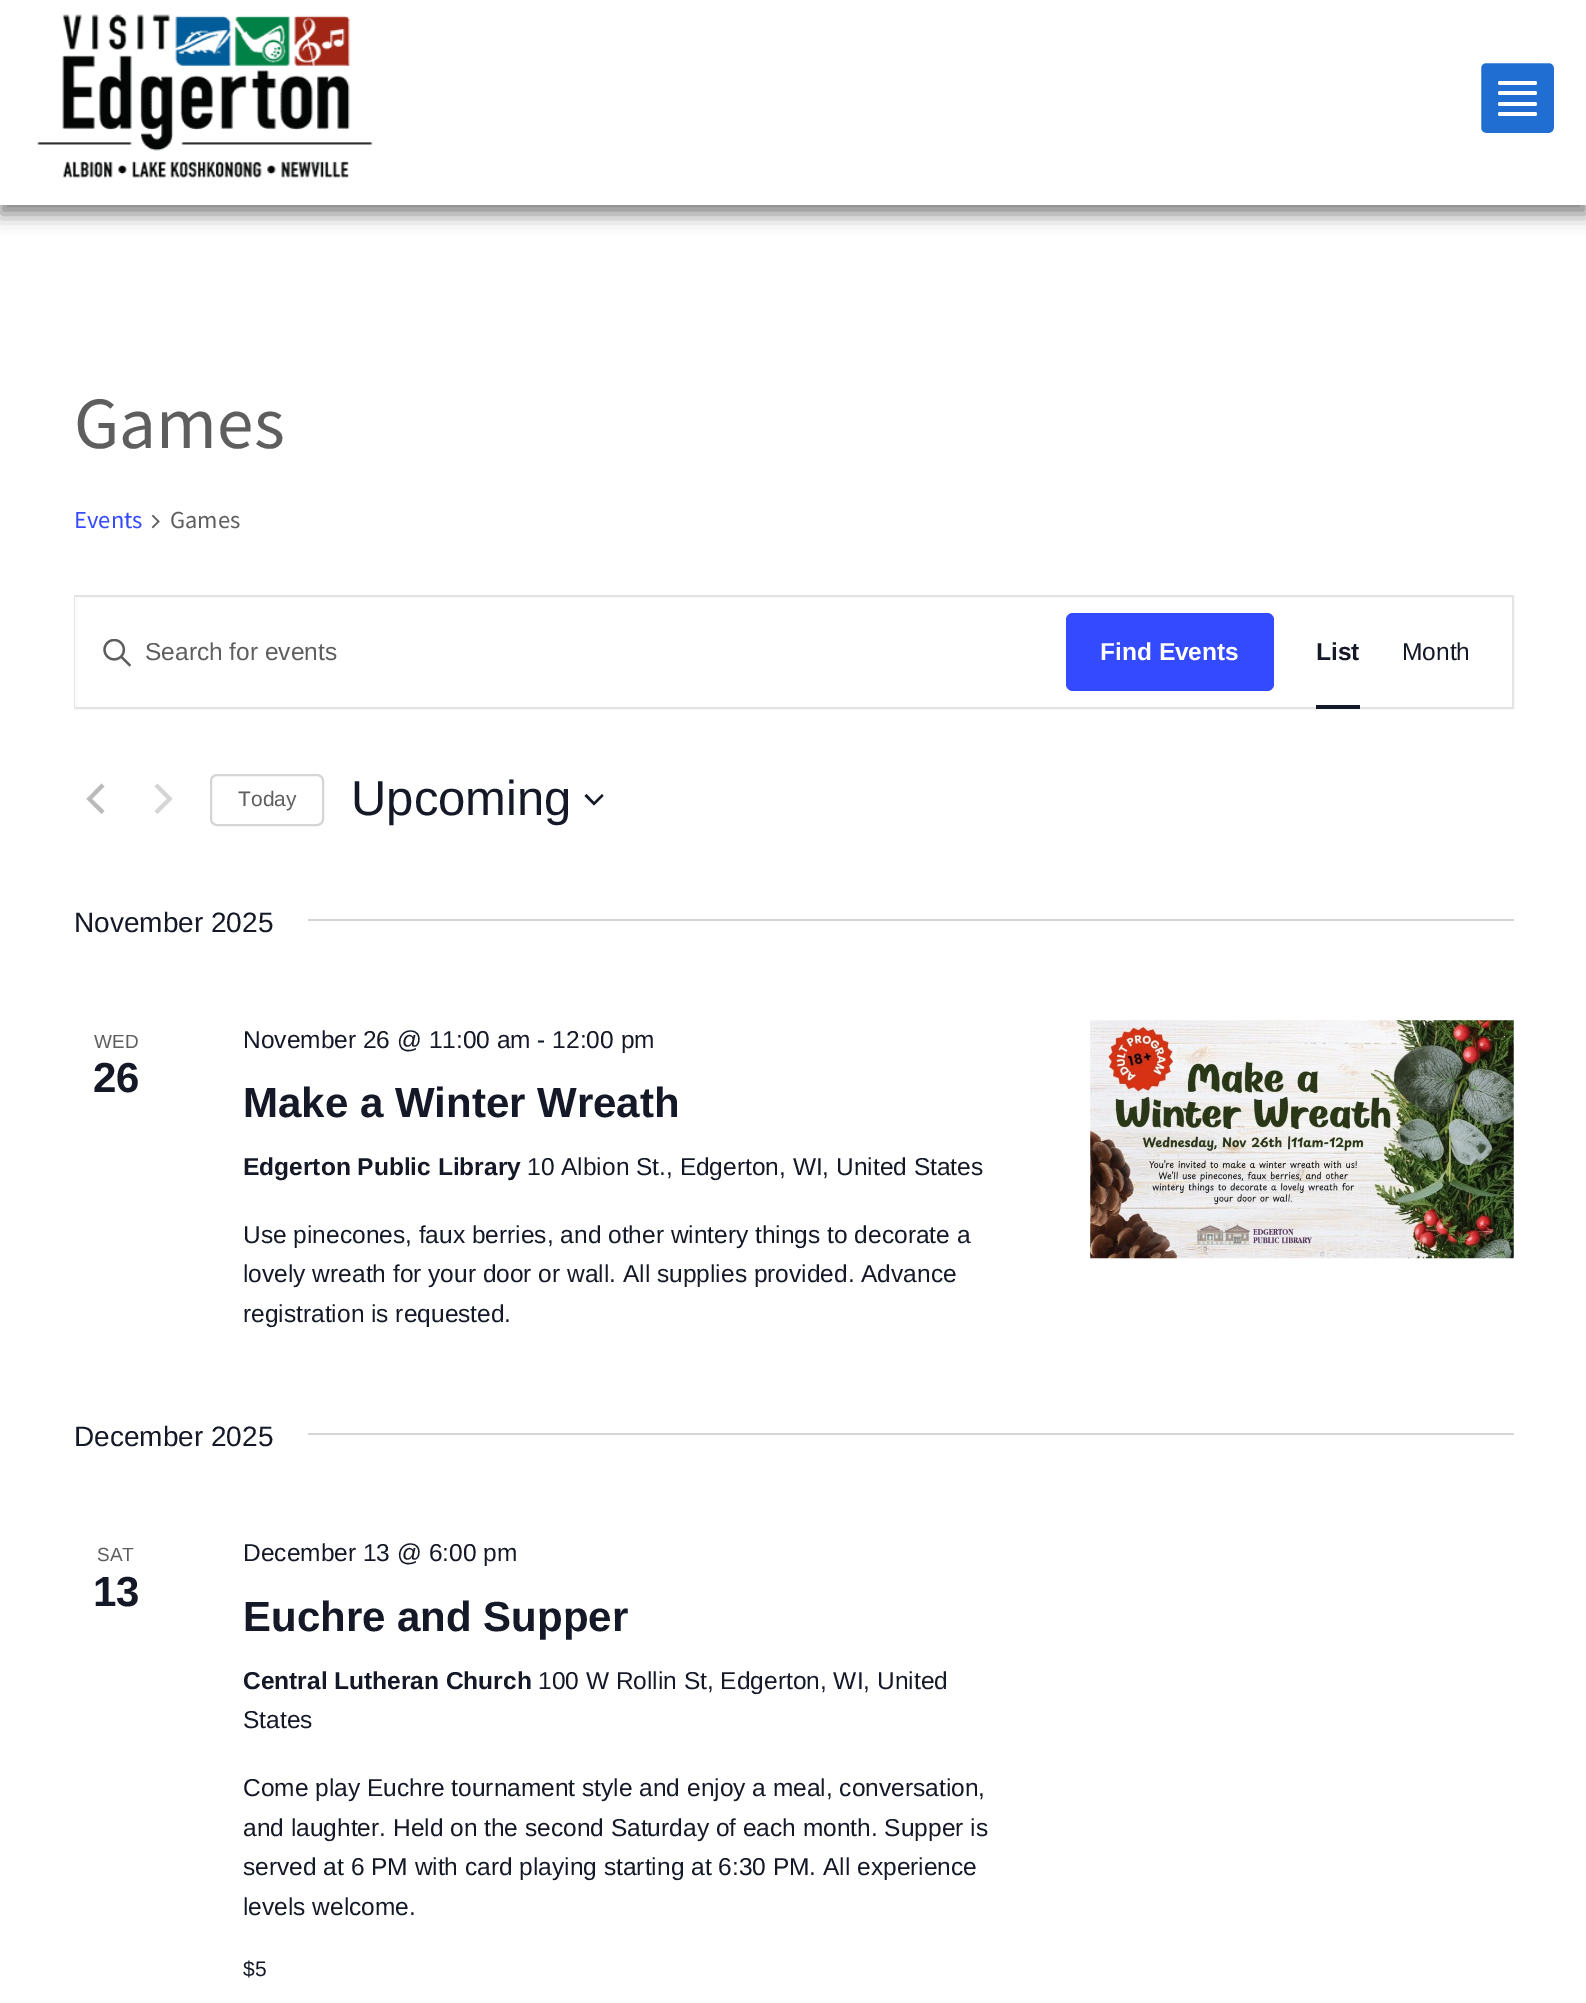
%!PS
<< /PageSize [1586 2003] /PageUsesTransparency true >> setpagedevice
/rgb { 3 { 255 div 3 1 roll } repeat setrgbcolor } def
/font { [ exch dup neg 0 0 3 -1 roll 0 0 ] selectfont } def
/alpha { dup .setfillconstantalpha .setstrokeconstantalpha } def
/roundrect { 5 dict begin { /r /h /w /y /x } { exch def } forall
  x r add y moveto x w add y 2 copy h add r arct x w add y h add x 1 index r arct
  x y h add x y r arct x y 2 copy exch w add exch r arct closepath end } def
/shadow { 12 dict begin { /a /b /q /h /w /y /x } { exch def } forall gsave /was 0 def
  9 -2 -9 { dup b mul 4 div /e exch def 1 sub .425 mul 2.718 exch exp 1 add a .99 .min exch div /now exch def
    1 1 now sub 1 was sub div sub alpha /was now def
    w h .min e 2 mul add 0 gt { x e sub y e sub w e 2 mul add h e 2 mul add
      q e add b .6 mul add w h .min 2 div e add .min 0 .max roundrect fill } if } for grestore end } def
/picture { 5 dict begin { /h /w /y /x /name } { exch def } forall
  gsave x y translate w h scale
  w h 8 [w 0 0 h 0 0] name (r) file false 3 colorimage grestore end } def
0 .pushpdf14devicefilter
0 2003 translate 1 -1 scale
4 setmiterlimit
255 255 255 rgb
0 0 1586 2003 rectfill
0 0 0 rgb
0 9 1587 205 0 9 0.5 shadow
255 255 255 rgb
0 0 1586 205 rectfill
(img/1.rgb) 37 14 336 164 picture
32 110 209 rgb
1480 62 75 72 6 roundrect gsave fill grestore
255 255 255 rgb
2 setlinewidth
stroke
1498 81 39 4 2 roundrect fill
1498 91 39 4 2 roundrect fill
1498 102 39 4 2 roundrect fill
1498 112 39 4 2 roundrect fill
(img/2.rgb) 151 515 9 14 picture
228 228 228 rgb
75 596 1438 112 rectstroke
255 255 255 rgb
75 597 1 110 rectfill
(img/3.rgb) 103 639 28 28 picture
51 74 255 rgb
1066 613 208 78 7 roundrect fill
20 24 39 rgb
1316 705 44 4 rectfill
186 186 186 rgb
104.5 811 moveto 101.5 814 lineto 86.5 799 lineto 101.5 783.5 lineto 104.5 786.5 lineto 92 799 lineto closepath fill
213 213 213 rgb
154.5 786.5 moveto 157.5 783.5 lineto 172.5 799 lineto 157.5 814 lineto 154.5 811 lineto 167 799 lineto closepath fill
211 775 112 50 6 roundrect stroke
20 24 39 rgb
586.5 794 moveto 594 802 lineto 602 794 lineto 603.5 796 lineto 594 805.5 lineto 584.5 796 lineto closepath eofill
213 213 213 rgb
308 919 1206 2 rectfill
(img/4.rgb) 1090 1020 424 239 picture
308 1433 1206 2 rectfill
/SourceSansPro-Regular 73.5 font
95 94 94 rgb
74 448 moveto (Games) show
/SourceSansPro-Regular 24.5 font
51 74 255 rgb
74 528 moveto (Events) show
95 94 94 rgb
170 528 moveto (Games) show
/LiberationSans-Regular 24.5 font
145 660 moveto (Search for events) show
/LiberationSans-Bold 24.5 font
255 255 255 rgb
1100 660 moveto (Find Events) show
20 24 39 rgb
1316 660 moveto (List) show
/LiberationSans-Regular 24.5 font
1402 660 moveto (Month) show
/LiberationSans-Regular 21 font
95 94 94 rgb
238 806 moveto (Today) show
/LiberationSans-Regular 49 font
20 24 39 rgb
351 815 moveto (Upcoming) show
/LiberationSans-Regular 28 font
74 932 moveto (November 2025) show
/LiberationSans-Regular 19 font
95 94 94 rgb
94 1048 moveto (WED) show
/LiberationSans-Bold 42 font
20 24 39 rgb
93 1092 moveto (26) show
/LiberationSans-Regular 24.5 font
243 1048 moveto (November 26 @ 11:00 am - 12:00 pm) show
/LiberationSans-Bold 42 font
243 1117 moveto (Make a Winter Wreath) show
/LiberationSans-Bold 24.5 font
243 1175 moveto (Edgerton Public Library) show
/LiberationSans-Regular 24.5 font
[
  [(10 Albion St., Edgerton, WI, United States) 527 1175]
  [(Use pinecones, faux berries, and other wintery things to decorate a) 243 1243]
  [(lovely wreath for your door or wall. All supplies provided. Advance) 243 1282]
  [(registration is requested.) 243 1322]
] { aload pop moveto show } forall
/LiberationSans-Regular 28 font
74 1446 moveto (December 2025) show
/LiberationSans-Regular 19 font
95 94 94 rgb
97 1561 moveto (SAT) show
/LiberationSans-Bold 42 font
20 24 39 rgb
93 1606 moveto (13) show
/LiberationSans-Regular 24.5 font
243 1561 moveto (December 13 @ 6:00 pm) show
/LiberationSans-Bold 42 font
243 1631 moveto (Euchre and Supper) show
/LiberationSans-Bold 24.5 font
243 1689 moveto (Central Lutheran Church) show
/LiberationSans-Regular 24.5 font
[
  [(100 W Rollin St, Edgerton, WI, United) 538 1689]
  [(States) 243 1728]
  [(Come play Euchre tournament style and enjoy a meal, conversation,) 243 1796]
  [(and laughter. Held on the second Saturday of each month. Supper is) 243 1836]
  [(served at 6 PM with card playing starting at 6:30 PM. All experience) 243 1875]
  [(levels welcome.) 243 1915]
] { aload pop moveto show } forall
/LiberationSans-Regular 21 font
243 1976 moveto ($5) show
.poppdf14devicefilter showpage
